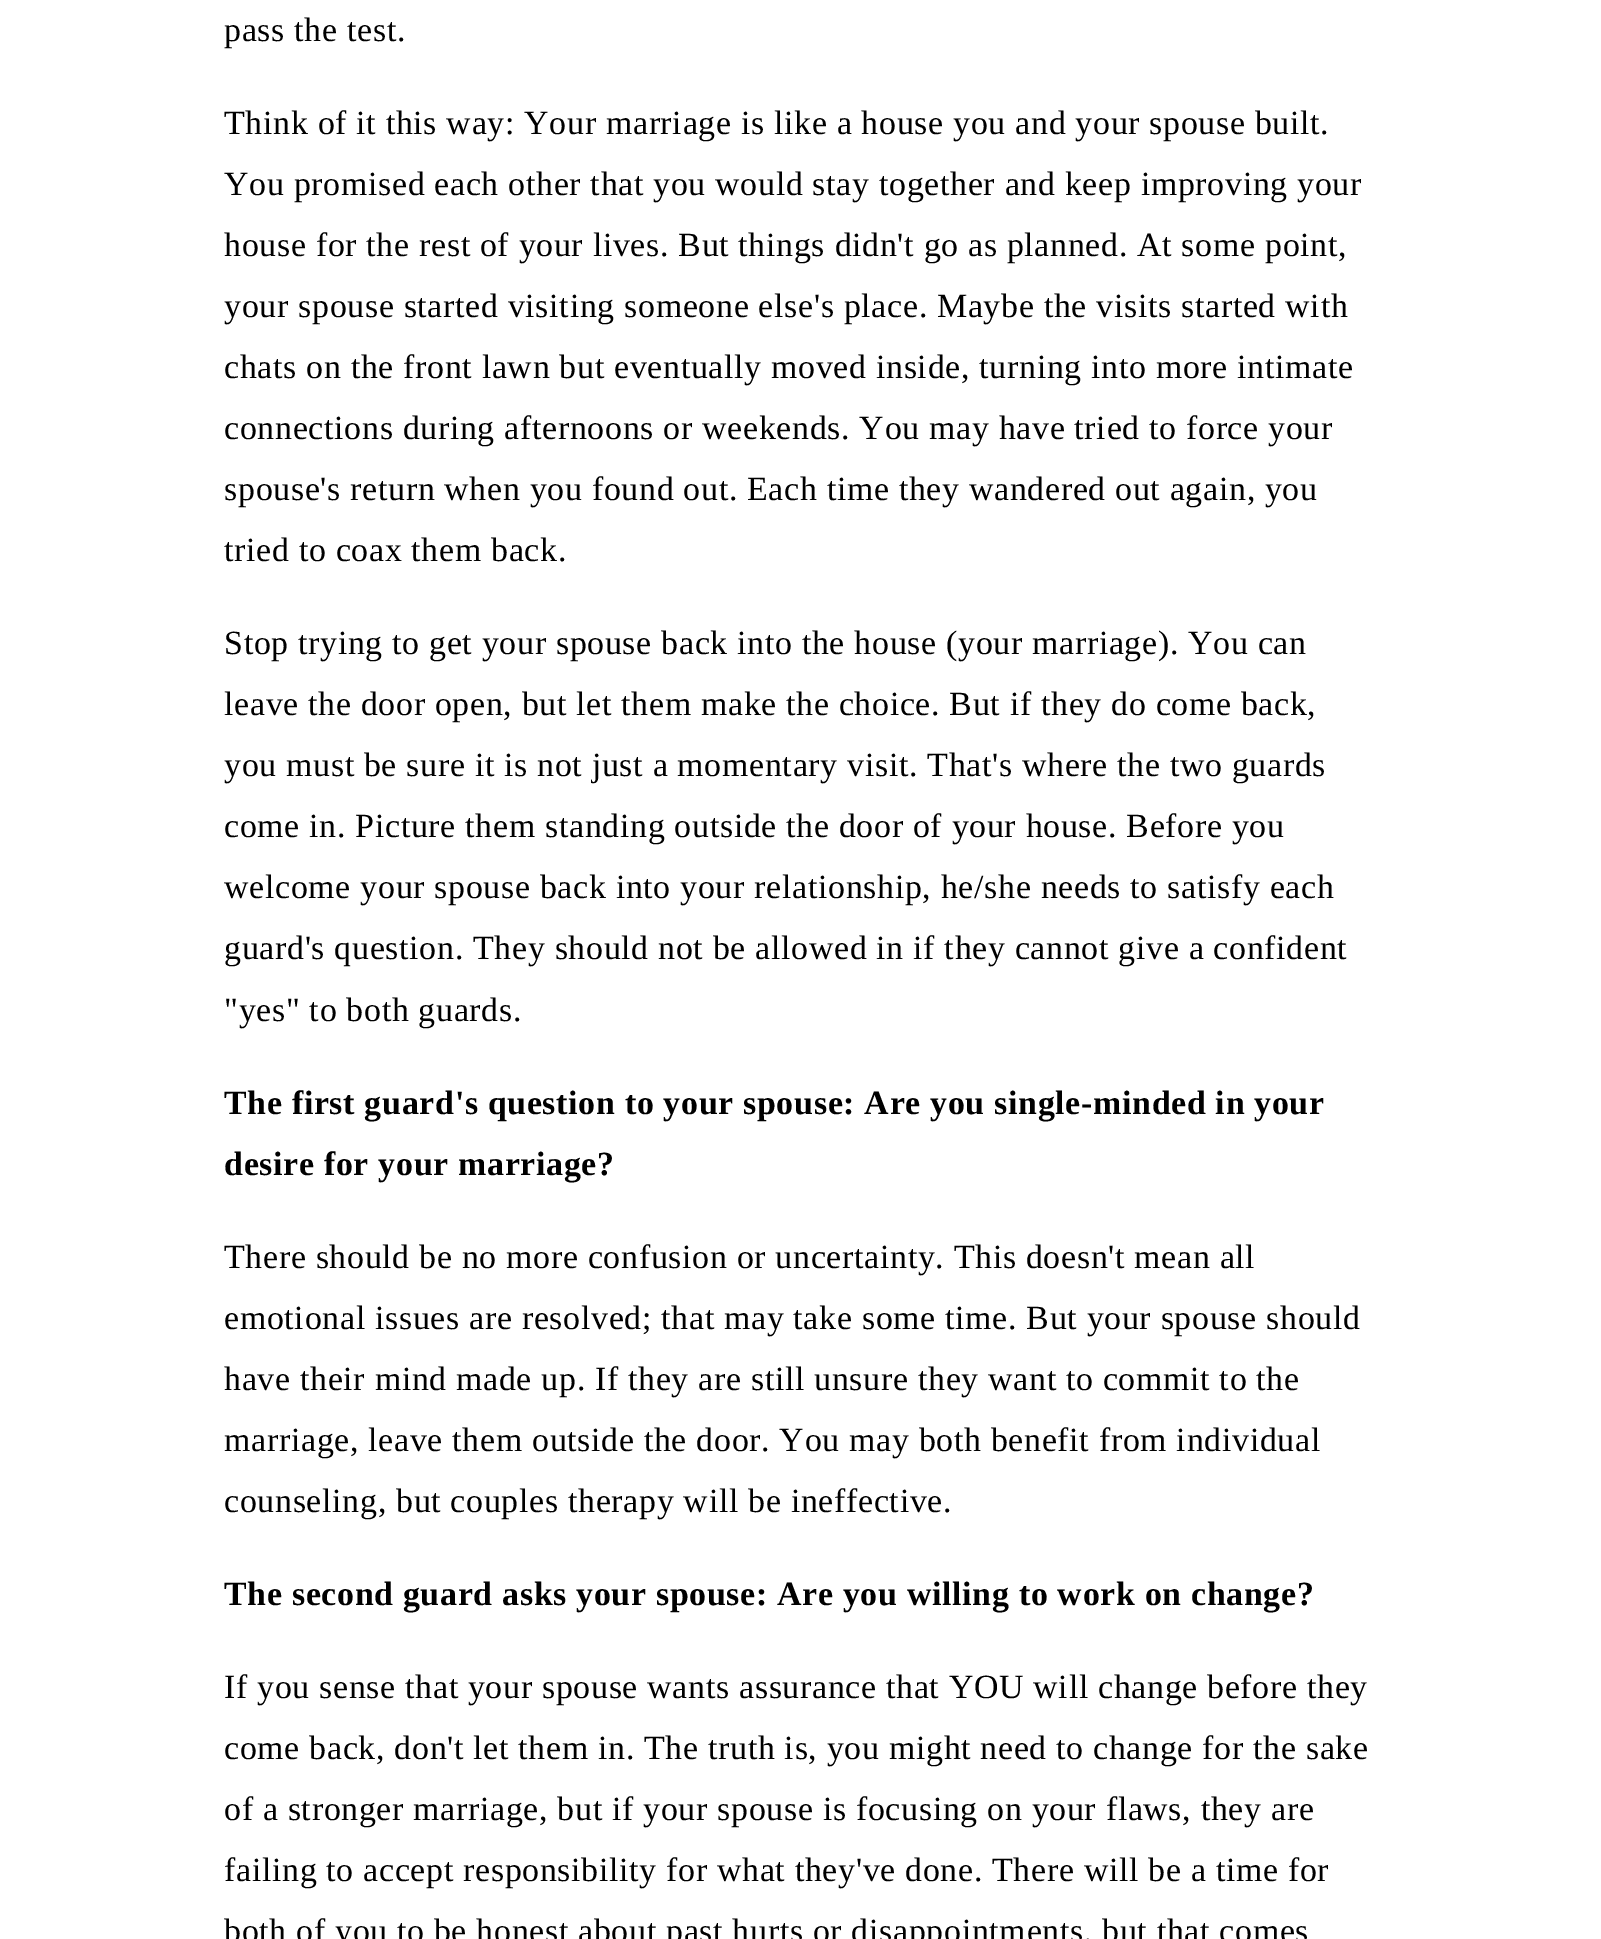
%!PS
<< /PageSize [1601 1939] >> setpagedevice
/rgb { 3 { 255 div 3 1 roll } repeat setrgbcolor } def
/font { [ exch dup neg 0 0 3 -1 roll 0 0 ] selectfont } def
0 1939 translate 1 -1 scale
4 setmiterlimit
255 255 255 rgb
0 0 1601 1939 rectfill
/LiberationSerif-Regular 33.9 font
0 0 0 rgb
224 41 moveto 0.68 0 (pass the test.) ashow
224 134 moveto 0.68 0 (Think of it this way: Your marriage is like a house you and your spouse built.) ashow
224 195 moveto 0.68 0 (You promised each other that you would stay together and keep improving your) ashow
224 256 moveto 0.68 0 (house for the rest of your lives. But things didn't go as planned. At some point,) ashow
224 317 moveto 0.68 0 (your spouse started visiting someone else's place. Maybe the visits started with) ashow
224 378 moveto 0.68 0 (chats on the front lawn but eventually moved inside, turning into more intimate) ashow
224 439 moveto 0.68 0 (connections during afternoons or weekends. You may have tried to force your) ashow
224 500 moveto 0.68 0 (spouse's return when you found out. Each time they wandered out again, you) ashow
224 561 moveto 0.68 0 (tried to coax them back.) ashow
224 654 moveto 0.68 0 (Stop trying to get your spouse back into the house \(your marriage\). You can) ashow
224 715 moveto 0.68 0 (leave the door open, but let them make the choice. But if they do come back,) ashow
224 776 moveto 0.68 0 (you must be sure it is not just a momentary visit. That's where the two guards) ashow
224 837 moveto 0.68 0 (come in. Picture them standing outside the door of your house. Before you) ashow
224 898 moveto 0.68 0 (welcome your spouse back into your relationship, he/she needs to satisfy each) ashow
224 959 moveto 0.68 0 (guard's question. They should not be allowed in if they cannot give a confident) ashow
224 1021 moveto 0.68 0 ("yes" to both guards.) ashow
/LiberationSerif-Bold 33.9 font
224 1114 moveto 0.68 0 (The first guard's question to your spouse: Are you single-minded in your) ashow
224 1175 moveto 0.68 0 (desire for your marriage?) ashow
/LiberationSerif-Regular 33.9 font
224 1268 moveto 0.68 0 (There should be no more confusion or uncertainty. This doesn't mean all) ashow
224 1329 moveto 0.68 0 (emotional issues are resolved; that may take some time. But your spouse should) ashow
224 1390 moveto 0.68 0 (have their mind made up. If they are still unsure they want to commit to the) ashow
224 1451 moveto 0.68 0 (marriage, leave them outside the door. You may both benefit from individual) ashow
224 1512 moveto 0.68 0 (counseling, but couples therapy will be ineffective.) ashow
/LiberationSerif-Bold 33.9 font
224 1605 moveto 0.68 0 (The second guard asks your spouse: Are you willing to work on change?) ashow
/LiberationSerif-Regular 33.9 font
224 1698 moveto 0.68 0 (If you sense that your spouse wants assurance that YOU will change before they) ashow
224 1759 moveto 0.68 0 (come back, don't let them in. The truth is, you might need to change for the sake) ashow
224 1820 moveto 0.68 0 (of a stronger marriage, but if your spouse is focusing on your flaws, they are) ashow
224 1881 moveto 0.68 0 (failing to accept responsibility for what they've done. There will be a time for) ashow
224 1942 moveto 0.68 0 (both of you to be honest about past hurts or disappointments, but that comes) ashow
showpage
